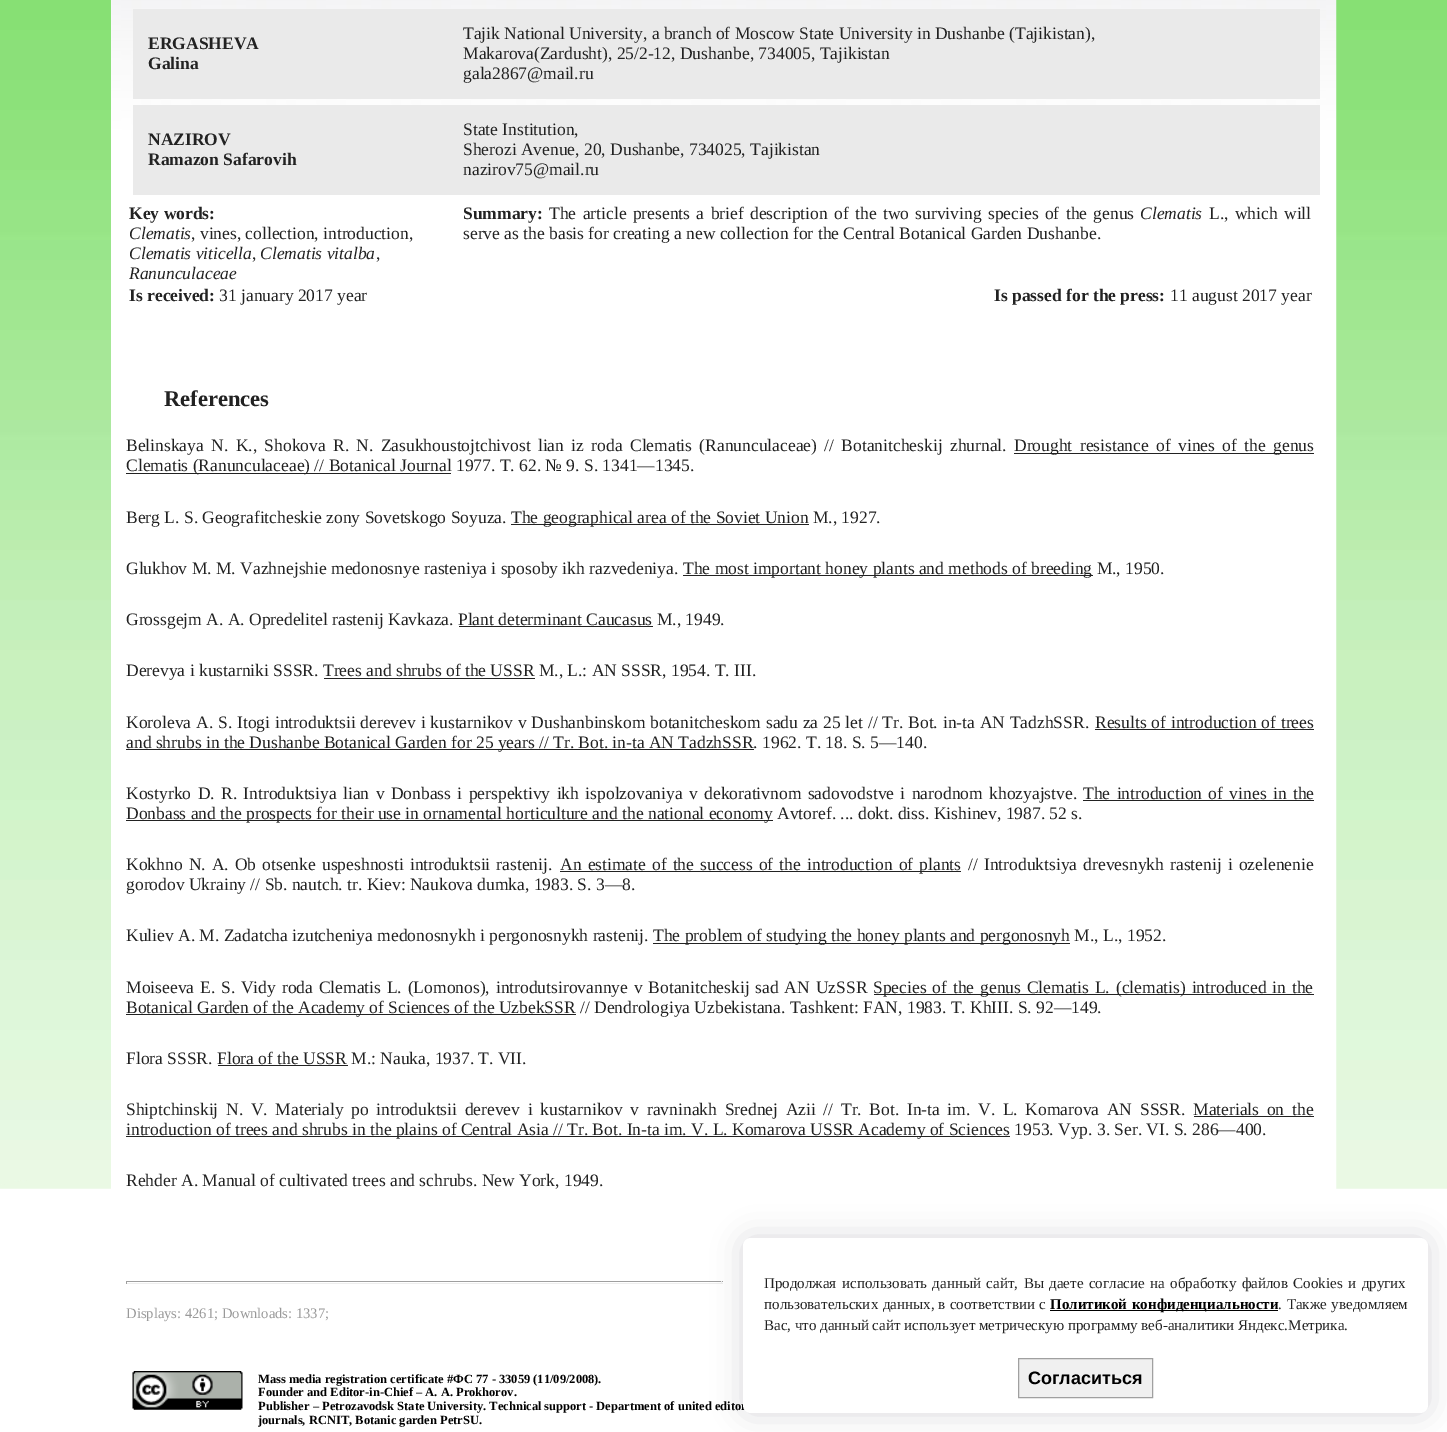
%!PS
<< /PageSize [1447 1432] /PageUsesTransparency true >> setpagedevice
/rgb { 3 { 255 div 3 1 roll } repeat setrgbcolor } def
/font { [ exch dup neg 0 0 3 -1 roll 0 0 ] selectfont } def
/alpha { dup .setfillconstantalpha .setstrokeconstantalpha } def
/roundrect { 5 dict begin { /r /h /w /y /x } { exch def } forall
  x r add y moveto x w add y 2 copy h add r arct x w add y h add x 1 index r arct
  x y h add x y r arct x y 2 copy exch w add exch r arct closepath end } def
/shadow { 12 dict begin { /a /b /q /h /w /y /x } { exch def } forall gsave /was 0 def
  9 -2 -9 { dup b mul 4 div /e exch def 1 sub .425 mul 2.718 exch exp 1 add a .99 .min exch div /now exch def
    1 1 now sub 1 was sub div sub alpha /was now def
    w h .min e 2 mul add 0 gt { x e sub y e sub w e 2 mul add h e 2 mul add
      q e add b .6 mul add w h .min 2 div e add .min 0 .max roundrect fill } if } for grestore end } def
/picture { 5 dict begin { /h /w /y /x /name } { exch def } forall
  gsave x y translate w h scale
  w h 8 [w 0 0 h 0 0] name (r) file false 3 colorimage grestore end } def
0 .pushpdf14devicefilter
0 1432 translate 1 -1 scale
4 setmiterlimit
255 255 255 rgb
0 0 1447 1432 rectfill
(img/1.rgb) 0 0 1447 1189 picture
111 0 1225 1189 rectfill
(img/2.rgb) 111 0 1226 1189 picture
[
  [133 9 1187 90 234 234 234]
  [133 105 1187 90 234 234 234]
  [1014 453 300 1 34 34 34]
  [126 473 325 1 34 34 34]
  [511 524 298 1 34 34 34]
  [683 575 410 1 34 34 34]
  [459 626 194 1 34 34 34]
  [324 678 211 1 34 34 34]
  [1095 729 219 1 34 34 34]
  [126 749 628 1 34 34 34]
  [1083 800 231 1 34 34 34]
  [126 820 647 1 34 34 34]
  [560 871 401 1 34 34 34]
  [653 943 417 1 34 34 34]
  [874 994 440 1 34 34 34]
  [126 1014 450 1 34 34 34]
  [218 1065 130 1 34 34 34]
  [1194 1116 120 1 34 34 34]
  [126 1136 884 1 34 34 34]
  [126 1281 597 1 159 159 159]
  [721 1281 1 3 238 238 238]
  [126 1283 597 1 238 238 238]
  [126 1281 1 3 159 159 159]
] { aload pop rgb rectfill } forall
5 0 31 rgb
743 1238 685 175 8 15 0.15 shadow
(img/3.rgb) 132 1371 111 39 picture
/LiberationSerif-Bold 17.5 font
34 34 34 rgb
148 49 moveto (ERGASHEVA) show
148 69 moveto (Galina) show
/LiberationSerif-Regular 17.5 font
[
  [(Tajik National University, a branch of Moscow State University in Dushanbe \(Tajikistan\),) 463 39]
  [(Makarova\(Zardusht\), 25/2-12, Dushanbe, 734005, Tajikistan) 463 59]
  [(gala2867@mail.ru) 463 79]
] { aload pop moveto show } forall
/LiberationSerif-Bold 17.5 font
148 145 moveto (NAZIROV) show
148 165 moveto (Ramazon Safarovih) show
/LiberationSerif-Regular 17.5 font
[
  [(State Institution,) 463 135]
  [(Sherozi Avenue, 20, Dushanbe, 734025, Tajikistan) 463 155]
  [(nazirov75@mail.ru) 463 175]
] { aload pop moveto show } forall
/LiberationSerif-Bold 17.5 font
129 219 moveto (Key words:) show
/LiberationSerif-Italic 17.5 font
129 239 moveto (Clematis) show
/LiberationSerif-Regular 17.5 font
191 239 moveto (, vines, collection, introduction,) show
/LiberationSerif-Italic 17.5 font
129 259 moveto (Clematis viticella) show
/LiberationSerif-Regular 17.5 font
252 259 moveto (,) show
/LiberationSerif-Italic 17.5 font
260 259 moveto (Clematis vitalba) show
/LiberationSerif-Regular 17.5 font
376 259 moveto (,) show
/LiberationSerif-Italic 17.5 font
129 279 moveto (Ranunculaceae) show
/LiberationSerif-Bold 17.5 font
463 219 moveto (Summary:) show
/LiberationSerif-Regular 17.5 font
549 219 moveto 2 0 32 (The article presents a brief description of the two surviving species of the genus) widthshow
/LiberationSerif-Italic 17.5 font
1140 219 moveto (Clematis) show
/LiberationSerif-Regular 17.5 font
1209 219 moveto 2 0 32 (L., which will) widthshow
463 239 moveto (serve as the basis for creating a new collection for the Central Botanical Garden Dushanbe.) show
/LiberationSerif-Bold 17.5 font
129 301 moveto (Is received:) show
/LiberationSerif-Regular 17.5 font
219 301 moveto (31 january 2017 year) show
/LiberationSerif-Bold 17.5 font
994 301 moveto (Is passed for the press:) show
/LiberationSerif-Regular 17.5 font
1170 301 moveto (11 august 2017 year) show
/LiberationSerif-Bold 22.5 font
164 406 moveto (References) show
/LiberationSerif-Regular 17.5 font
126 451 moveto 3 0 32 (Belinskaya N. K., Shokova R. N. Zasukhoustojtchivost lian iz roda Clematis \(Ranunculaceae\) // Botanitcheskij zhurnal.) widthshow
1014 451 moveto 3 0 32 (Drought resistance of vines of the genus) widthshow
[
  [(Clematis \(Ranunculaceae\) // Botanical Journal 1977. T. 62. № 9. S. 1341—1345.) 126 471]
  [(Berg L. S. Geografitcheskie zony Sovetskogo Soyuza.) 126 523]
  [(The geographical area of the Soviet Union M., 1927.) 511 523]
  [(Glukhov M. M. Vazhnejshie medonosnye rasteniya i sposoby ikh razvedeniya.) 126 574]
  [(The most important honey plants and methods of breeding M., 1950.) 683 574]
  [(Grossgejm A. A. Opredelitel rastenij Kavkaza. Plant determinant Caucasus M., 1949.) 126 625]
  [(Derevya i kustarniki SSSR. Trees and shrubs of the USSR M., L.: AN SSSR, 1954. T. III.) 126 676]
] { aload pop moveto show } forall
126 728 moveto 0.5 0 32 (Koroleva A. S. Itogi introduktsii derevev i kustarnikov v Dushanbinskom botanitcheskom sadu za 25 let // Tr. Bot. in-ta AN TadzhSSR.) widthshow
1095 728 moveto 0.5 0 32 (Results of introduction of trees) widthshow
126 748 moveto (and shrubs in the Dushanbe Botanical Garden for 25 years // Tr. Bot. in-ta AN TadzhSSR. 1962. T. 18. S. 5—140.) show
126 799 moveto 2 0 32 (Kostyrko D. R. Introduktsiya lian v Donbass i perspektivy ikh ispolzovaniya v dekorativnom sadovodstve i narodnom khozyajstve.) widthshow
1083 799 moveto 2 0 32 (The introduction of vines in the) widthshow
126 819 moveto (Donbass and the prospects for their use in ornamental horticulture and the national economy Avtoref. ... dokt. diss. Kishinev, 1987. 52 s.) show
126 870 moveto 1.75 0 32 (Kokhno N. A. Ob otsenke uspeshnosti introduktsii rastenij.) widthshow
560 870 moveto 1.75 0 32 (An estimate of the success of the introduction of plants) widthshow
968 870 moveto 1.75 0 32 (// Introduktsiya drevesnykh rastenij i ozelenenie) widthshow
[
  [(gorodov Ukrainy // Sb. nautch. tr. Kiev: Naukova dumka, 1983. S. 3—8.) 126 890]
  [(Kuliev A. M. Zadatcha izutcheniya medonosnykh i pergonosnykh rastenij.) 126 941]
  [(The problem of studying the honey plants and pergonosnyh M., L., 1952.) 653 941]
] { aload pop moveto show } forall
126 993 moveto 1.5 0 32 (Moiseeva E. S. Vidy roda Clematis L. \(Lomonos\), introdutsirovannye v Botanitcheskij sad AN UzSSR) widthshow
873 993 moveto 1.5 0 32 (Species of the genus Clematis L. \(clematis\) introduced in the) widthshow
126 1013 moveto (Botanical Garden of the Academy of Sciences of the UzbekSSR // Dendrologiya Uzbekistana. Tashkent: FAN, 1983. T. KhIII. S. 92—149.) show
126 1064 moveto (Flora SSSR. Flora of the USSR M.: Nauka, 1937. T. VII.) show
126 1115 moveto 3.3 0 32 (Shiptchinskij N. V. Materialy po introduktsii derevev i kustarnikov v ravninakh Srednej Azii // Tr. Bot. In-ta im. V. L. Komarova AN SSSR.) widthshow
1193 1115 moveto 3.3 0 32 (Materials on the) widthshow
126 1135 moveto (introduction of trees and shrubs in the plains of Central Asia // Tr. Bot. In-ta im. V. L. Komarova USSR Academy of Sciences 1953. Vyp. 3. Ser. VI. S. 286—400.) show
126 1186 moveto (Rehder A. Manual of cultivated trees and schrubs. New York, 1949.) show
/LiberationSerif-Regular 14.6 font
153 153 153 rgb
126 1318 moveto (Displays: 4261; Downloads: 1337;) show
/LiberationSerif-Bold 12.5 font
0 0 0 rgb
[
  [(Mass media registration certificate #ФС 77 - 33059 \(11/09/2008\).) 258 1383]
  [(Founder and Editor-in-Chief – A. A. Prokhorov.) 258 1396]
  [(Publisher – Petrozavodsk State University. Technical support - Department of united editor) 258 1410]
] { aload pop moveto show } forall
255 255 255 rgb
743 1238 685 175 8 roundrect fill
240 240 240 rgb
1018.5 1358.5 moveto 1152.5 1358.5 lineto 1152.5 1397.5 lineto 1018.5 1397.5 lineto closepath gsave fill grestore
160 160 160 rgb
stroke
/LiberationSans-Bold 18 font
0 0 0 rgb
1028 1384 moveto (Согласиться) show
/LiberationSerif-Regular 15 font
34 34 34 rgb
764 1330 moveto (Вас, что данный сайт использует метрическую программу веб-аналитики Яндекс.Метрика.) show
1278 1309 moveto 1 0 32 (. Также уведомляем) widthshow
0 0 0 rgb
1050 1310 228 1 rectfill
/LiberationSerif-Bold 15 font
1050 1309 moveto 1 0 32 (Политикой конфиденциальности) widthshow
/LiberationSerif-Regular 15 font
34 34 34 rgb
938 1309 moveto 1 0 32 (в соответствии с) widthshow
764 1309 moveto 1 0 32 (пользовательских данных,) widthshow
764 1288 moveto 1.75 0 32 (Продолжая использовать данный сайт, Вы даете согласие на обработку файлов Cookies и других) widthshow
/LiberationSerif-Bold 12.5 font
0 0 0 rgb
258 1424 moveto (journals, RCNIT, Botanic garden PetrSU.) show
.poppdf14devicefilter showpage
